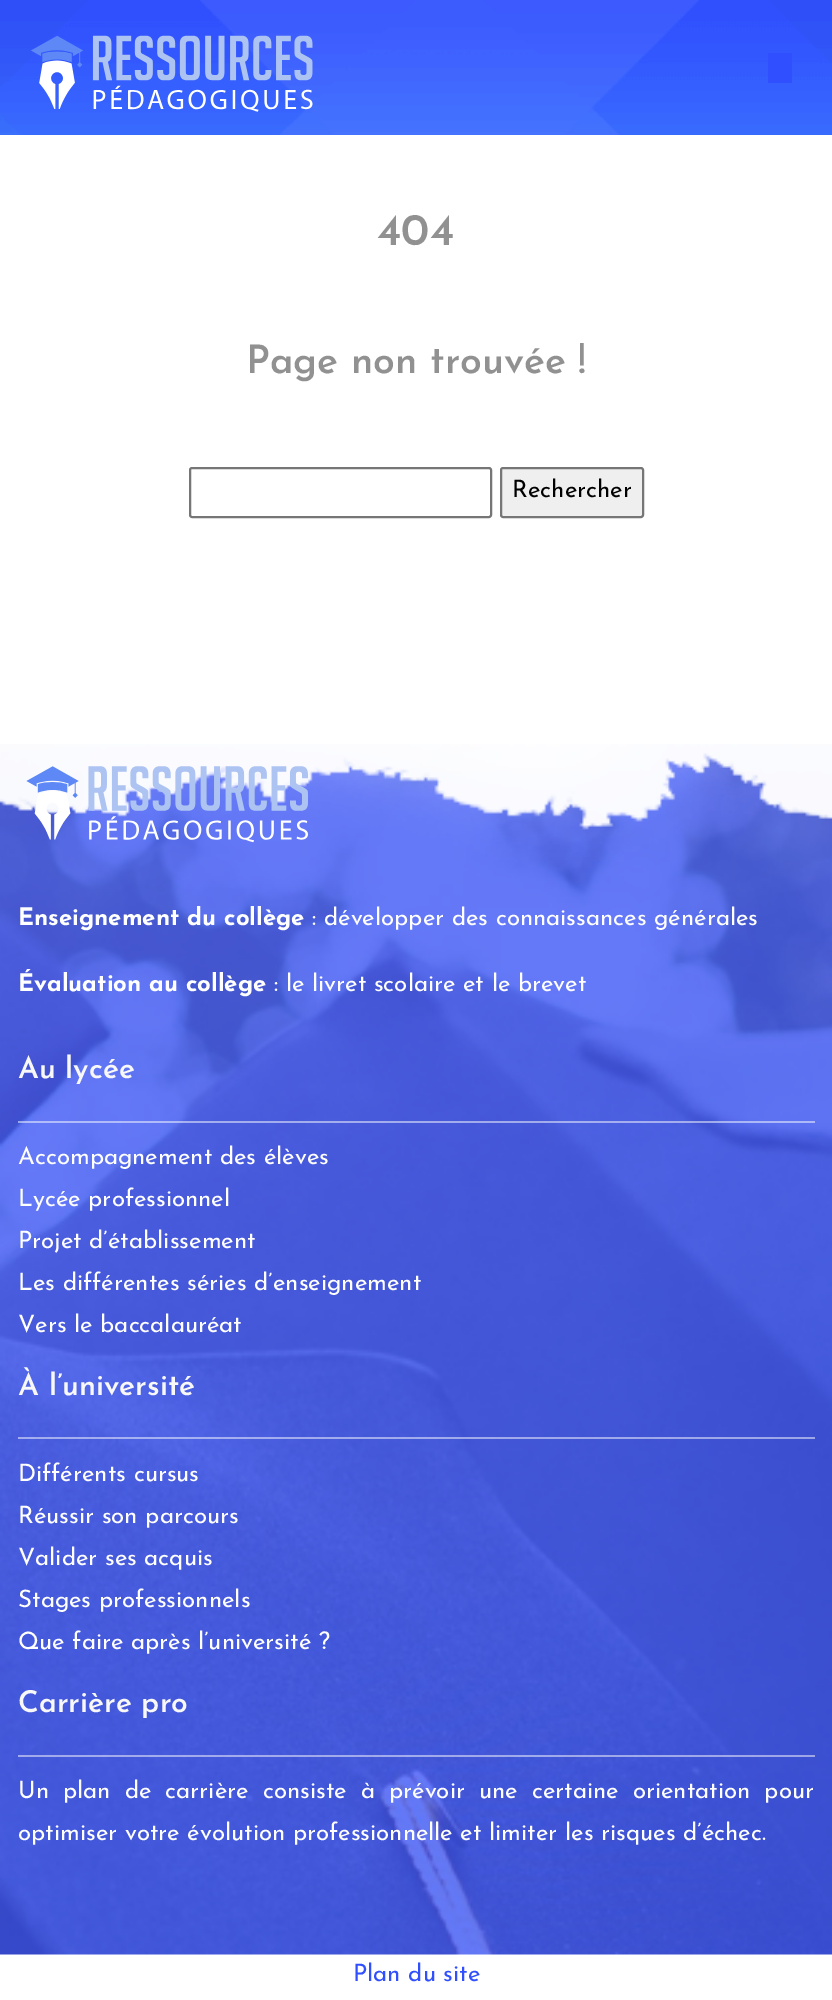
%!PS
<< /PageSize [832 2000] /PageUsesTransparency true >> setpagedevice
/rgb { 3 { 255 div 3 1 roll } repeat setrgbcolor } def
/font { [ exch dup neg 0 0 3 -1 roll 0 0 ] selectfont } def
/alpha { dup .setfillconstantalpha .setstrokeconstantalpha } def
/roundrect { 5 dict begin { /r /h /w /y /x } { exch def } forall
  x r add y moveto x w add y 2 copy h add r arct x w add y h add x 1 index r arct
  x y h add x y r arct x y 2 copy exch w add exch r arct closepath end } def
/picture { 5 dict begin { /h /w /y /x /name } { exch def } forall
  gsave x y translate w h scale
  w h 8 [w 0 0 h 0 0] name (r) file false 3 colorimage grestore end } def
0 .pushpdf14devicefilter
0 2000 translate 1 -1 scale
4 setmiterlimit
255 255 255 rgb
0 0 832 2000 rectfill
(img/1.rgb) 0 0 832 135 picture
(img/2.rgb) 31 35 282 77 picture
48 79 254 rgb
768 53 24 30 rectfill
118 118 118 rgb
2 setlinewidth
190 468 301 49 2 roundrect stroke
239 239 239 rgb
501 468 142 49 2 roundrect gsave fill grestore
118 118 118 rgb
stroke
(img/3.rgb) 0 744 832 1211 picture
(img/4.rgb) 26 766 282 77 picture
0.5 alpha
[
  [18 1121 797 2 255 255 255]
  [18 1437 797 2 255 255 255]
  [18 1755 797 2 255 255 255]
] { aload pop rgb rectfill } forall
/JosefinSans-SemiBold 45 font
1 alpha
145 145 145 rgb
377 245 moveto (404) show
/JosefinSans-SemiBold 39.25 font
246 373 moveto (Page non trouvée !) show
/JosefinSans-Regular 24 font
0 0 0 rgb
512 497 moveto (Rechercher) show
/JosefinSans-Bold 24 font
255 255 255 rgb
18 925 moveto (Enseignement du collège) show
/JosefinSans-Regular 24 font
312 925 moveto (: développer des connaissances générales) show
/JosefinSans-Bold 24 font
18 991 moveto (Évaluation au collège) show
/JosefinSans-Regular 24 font
274 991 moveto (: le livret scolaire et le brevet) show
/JosefinSans-SemiBold 30 font
248 248 248 rgb
18 1078 moveto (Au lycée) show
/JosefinSans-Regular 24 font
255 255 255 rgb
[
  [(Accompagnement des élèves) 18 1164]
  [(Lycée professionnel) 18 1206]
  [(Projet d’établissement) 18 1248]
  [(Les différentes séries d’enseignement) 18 1290]
  [(Vers le baccalauréat) 18 1332]
] { aload pop moveto show } forall
/JosefinSans-SemiBold 30 font
248 248 248 rgb
18 1395 moveto (À l’université) show
/JosefinSans-Regular 24 font
255 255 255 rgb
[
  [(Différents cursus) 18 1481]
  [(Réussir son parcours) 18 1523]
  [(Valider ses acquis) 18 1565]
  [(Stages professionnels) 18 1607]
  [(Que faire après l’université ?) 18 1649]
] { aload pop moveto show } forall
/JosefinSans-SemiBold 30 font
248 248 248 rgb
18 1712 moveto (Carrière pro) show
/JosefinSans-Regular 24 font
255 255 255 rgb
18 1798 moveto 6.5 0 32 (Un plan de carrière consiste à prévoir une certaine orientation pour) widthshow
18 1840 moveto (optimiser votre évolution professionnelle et limiter les risques d’échec.) show
48 79 254 rgb
353 1981 moveto (Plan du site) show
.poppdf14devicefilter showpage
